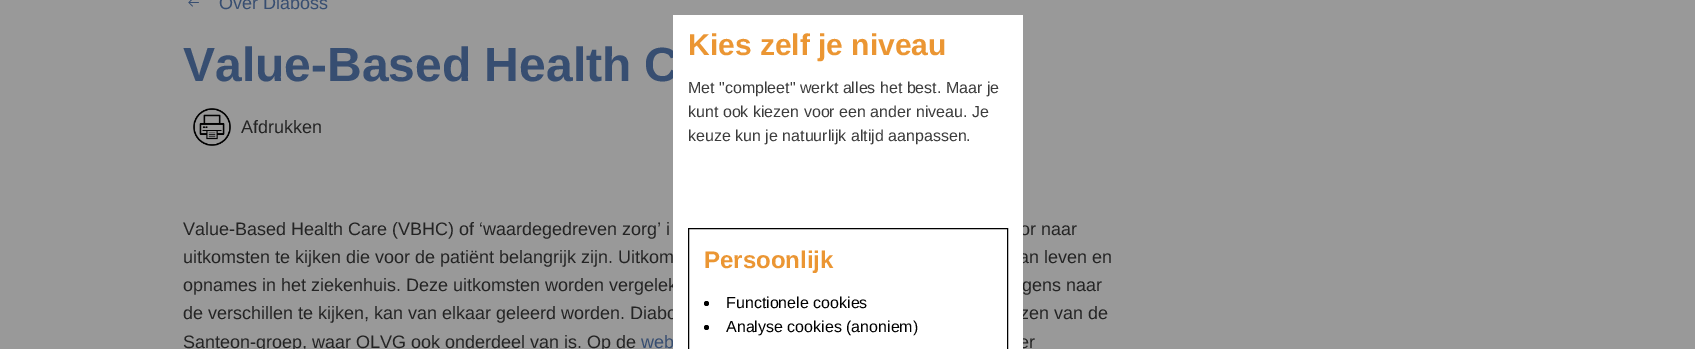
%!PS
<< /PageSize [1695 349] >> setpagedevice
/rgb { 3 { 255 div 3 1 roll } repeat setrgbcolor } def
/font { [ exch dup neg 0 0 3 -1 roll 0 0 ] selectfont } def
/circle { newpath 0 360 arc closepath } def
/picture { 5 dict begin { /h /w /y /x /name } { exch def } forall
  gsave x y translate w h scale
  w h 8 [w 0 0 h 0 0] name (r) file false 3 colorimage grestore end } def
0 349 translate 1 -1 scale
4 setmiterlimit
153 153 153 rgb
0 0 1695 349 rectfill
(img/1.rgb) 188 0 11 7 picture
(img/2.rgb) 193 108 38 38 picture
/LiberationSans-Regular 18 font
55 78 113 rgb
219 9 moveto (Over Diaboss) show
/LiberationSans-Bold 48 font
183 81 moveto (Value-Based Health C) show
/LiberationSans-Regular 18 font
36 36 36 rgb
[
  [(Afdrukken) 241 133]
  [(Value-Based Health Care \(VBHC\) of ‘waardegedreven zorg’ i) 183 235]
  [(or naar) 1020 235]
  [(uitkomsten te kijken die voor de patiënt belangrijk zijn. Uitkom) 183 263]
  [(an leven en) 1019 263]
  [(opnames in het ziekenhuis. Deze uitkomsten worden vergelek) 183 291]
  [(gens naar) 1022 291]
  [(de verschillen te kijken, kan van elkaar geleerd worden. Diabo) 183 319]
  [(zen van de) 1020 319]
  [(Santeon-groep, waar OLVG ook onderdeel van is. Op de) 183 348]
] { aload pop moveto show } forall
55 78 113 rgb
641 348 moveto (web) show
36 36 36 rgb
1019 348 moveto (er) show
255 255 255 rgb
673 15 350 334 rectfill
/LiberationSans-Bold 30 font
235 150 51 rgb
688 55 moveto (Kies zelf je niveau) show
/LiberationSans-Regular 16 font
60 60 60 rgb
[
  [(Met "compleet" werkt alles het best. Maar je) 688 93]
  [(kunt ook kiezen voor een ander niveau. Je) 688 117]
  [(keuze kun je natuurlijk altijd aanpassen.) 688 141]
] { aload pop moveto show } forall
0 0 0 rgb
688.5 228.5 319 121 rectstroke
/LiberationSans-Bold 24 font
235 150 51 rgb
704 268 moveto (Persoonlijk) show
0 0 0 rgb
706.5 303.5 2.5 circle fill
/LiberationSans-Regular 16 font
726 308 moveto (Functionele cookies) show
706.5 327.5 2.5 circle fill
726 332 moveto (Analyse cookies \(anoniem\)) show
showpage
